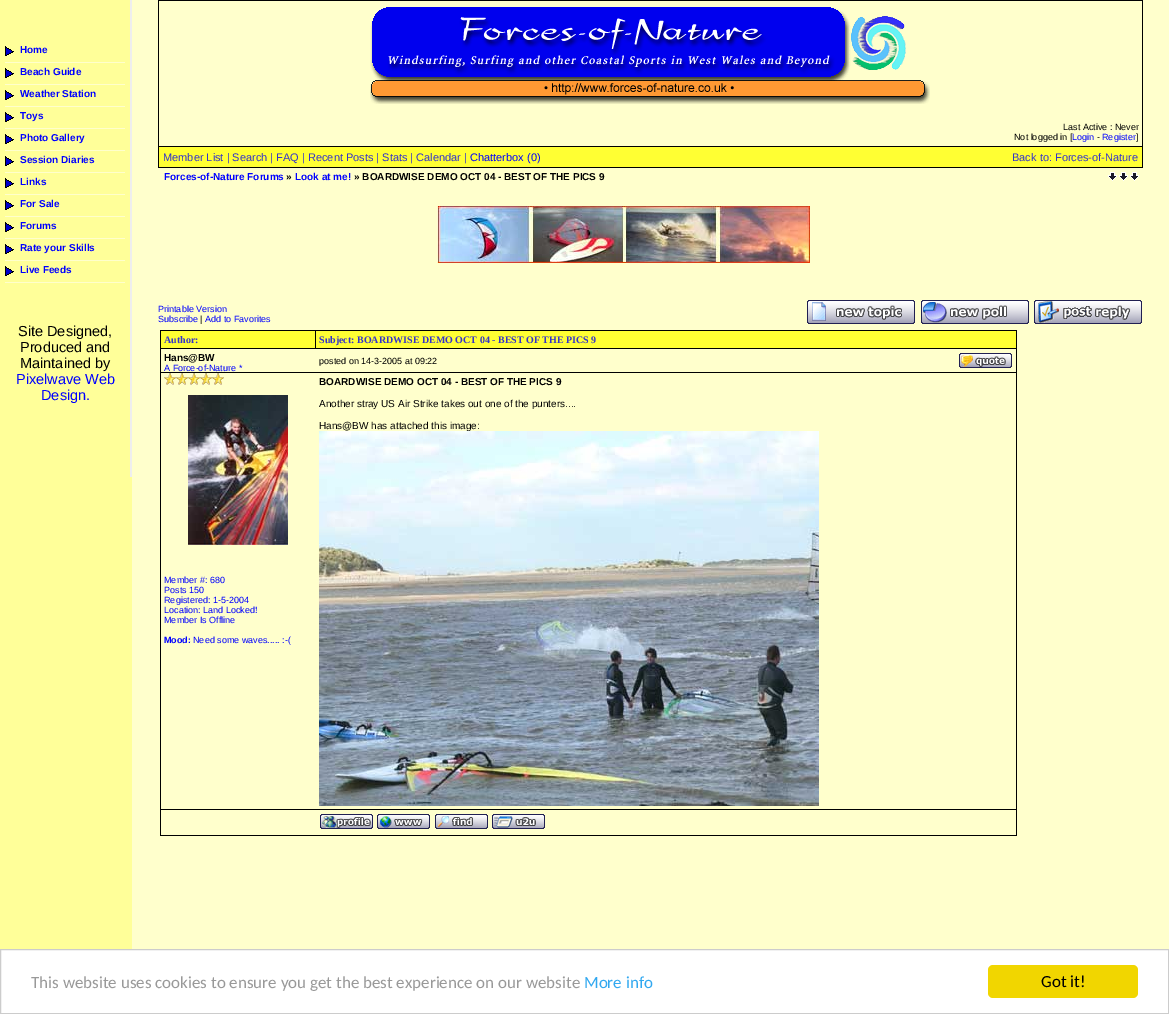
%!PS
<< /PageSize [1169 1014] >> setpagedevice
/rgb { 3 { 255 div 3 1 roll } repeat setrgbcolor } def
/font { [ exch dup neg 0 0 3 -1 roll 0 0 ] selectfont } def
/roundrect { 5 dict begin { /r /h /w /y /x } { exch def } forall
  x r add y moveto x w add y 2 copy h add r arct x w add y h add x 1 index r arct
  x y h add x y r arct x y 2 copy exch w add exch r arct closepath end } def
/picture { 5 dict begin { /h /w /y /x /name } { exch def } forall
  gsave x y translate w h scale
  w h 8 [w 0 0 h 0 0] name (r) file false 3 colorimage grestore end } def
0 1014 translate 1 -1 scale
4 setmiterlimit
255 255 204 rgb
0 0 1169 1014 rectfill
255 255 153 rgb
0 0 132 949 rectfill
238 238 238 rgb
130 0 2 477 rectfill
(img/1.rgb) 5 46 9 10 picture
255 255 204 rgb
5 62 120 1 rectfill
(img/1.rgb) 5 68 9 10 picture
5 84 120 1 rectfill
(img/1.rgb) 5 90 9 10 picture
5 106 120 1 rectfill
(img/1.rgb) 5 112 9 10 picture
5 128 120 1 rectfill
(img/1.rgb) 5 134 9 10 picture
5 150 120 1 rectfill
(img/1.rgb) 5 156 9 10 picture
5 172 120 1 rectfill
(img/1.rgb) 5 178 9 10 picture
5 194 120 1 rectfill
(img/1.rgb) 5 200 9 10 picture
5 216 120 1 rectfill
(img/1.rgb) 5 222 9 10 picture
5 238 120 1 rectfill
(img/1.rgb) 5 244 9 10 picture
5 260 120 1 rectfill
(img/1.rgb) 5 266 9 10 picture
[
  [5 282 120 1 255 255 204]
  [158 0 985 168 0 0 0]
  [159 1 983 145 255 255 204]
] { aload pop rgb rectfill } forall
(img/2.rgb) 370 7 560 97 picture
255 255 51 rgb
159 147 983 20 rectfill
(img/3.rgb) 1108 172 31 9 picture
(img/4.rgb) 437 206 373 57 picture
(img/5.rgb) 807 300 108 24 picture
(img/6.rgb) 921 300 108 24 picture
(img/7.rgb) 1034 300 108 24 picture
[
  [160 330 857 506 0 0 0]
  [161 331 154 17 255 255 51]
  [316 331 700 17 255 255 51]
  [161 349 855 23 255 255 204]
  [161 373 855 436 255 255 204]
] { aload pop rgb rectfill } forall
(img/8.rgb) 164 373 12 12 picture
(img/8.rgb) 176 373 12 12 picture
(img/8.rgb) 188 373 12 12 picture
(img/8.rgb) 200 373 12 12 picture
(img/8.rgb) 212 373 12 12 picture
(img/9.rgb) 188 395 100 150 picture
(img/10.rgb) 959 353 53 15 picture
161 810 855 25 rectfill
(img/12.rgb) 320 814 53 15 picture
(img/13.rgb) 377 814 53 15 picture
(img/14.rgb) 435 814 53 15 picture
(img/15.rgb) 492 814 53 15 picture
255 255 255 rgb
0.5 949.5 moveto 1168.5 949.5 lineto 1168.5 1013.5 lineto 0.5 1013.5 lineto closepath gsave fill grestore
204 204 204 rgb
stroke
241 214 0 rgb
988 965 150 33 5 roundrect fill
/LiberationSans-Bold 10 font
0 0 255 rgb
[
  [(Home) 20 53]
  [(Beach Guide) 20 75]
  [(Weather Station) 20 97]
  [(Toys) 20 119]
  [(Photo Gallery) 20 141]
  [(Session Diaries) 20 163]
  [(Links) 20 185]
  [(For Sale) 20 207]
  [(Forums) 20 229]
  [(Rate your Skills) 20 251]
  [(Live Feeds) 20 273]
] { aload pop moveto show } forall
/LiberationSans-Regular 14.5 font
0 0 0 rgb
[
  [(Site Designed,) 18 336]
  [(Produced and) 20 352]
  [(Maintained by) 20 368]
] { aload pop moveto show } forall
0 0 255 rgb
16 384 moveto (Pixelwave Web) show
41 400 moveto (Design.) show
/LiberationSans-Regular 9 font
0 0 0 rgb
1063 130 moveto (Last Active : Never) show
1014 140 moveto (Not logged in [) show
0 0 255 rgb
1072 140 moveto (Login) show
0 0 0 rgb
1097 140 moveto (-) show
0 0 255 rgb
1102 140 moveto (Register) show
0 0 0 rgb
1136 140 moveto (]) show
/LiberationSans-Regular 11 font
51 51 204 rgb
163 161 moveto (Member List | Search | FAQ | Recent Posts | Stats | Calendar |) show
0 0 255 rgb
470 161 moveto (Chatterbox \(0\)) show
51 51 204 rgb
1012 161 moveto (Back to: Forces-of-Nature) show
/LiberationSans-Bold 10 font
0 0 255 rgb
164 180 moveto (Forces-of-Nature Forums) show
0 0 0 rgb
286 180 moveto (») show
0 0 255 rgb
295 180 moveto (Look at me!) show
0 0 0 rgb
354 180 moveto (» BOARDWISE DEMO OCT 04 - BEST OF THE PICS 9) show
/LiberationSans-Regular 9 font
0 0 255 rgb
158 312 moveto (Printable Version) show
158 322 moveto (Subscribe) show
0 0 0 rgb
200 322 moveto (|) show
0 0 255 rgb
205 322 moveto (Add to Favorites) show
/LiberationSerif-Bold 10 font
51 51 204 rgb
164 343 moveto (Author:) show
319 343 moveto (Subject: BOARDWISE DEMO OCT 04 - BEST OF THE PICS 9) show
/LiberationSans-Bold 10 font
0 0 0 rgb
164 361 moveto (Hans@BW) show
/LiberationSans-Regular 9 font
0 0 255 rgb
[
  [(A Force-of-Nature *) 164 371]
  [(Member #: 680) 164 583]
  [(Posts 150) 164 593]
  [(Registered: 1-5-2004) 164 603]
  [(Location: Land Locked!) 164 613]
  [(Member Is Offline) 164 623]
] { aload pop moveto show } forall
/LiberationSans-Bold 9 font
164 643 moveto (Mood:) show
/LiberationSans-Regular 9 font
193 643 moveto (Need some waves..... :-\() show
0 0 0 rgb
319 364 moveto (posted on 14-3-2005 at 09:22) show
/LiberationSans-Bold 10 font
319 385 moveto (BOARDWISE DEMO OCT 04 - BEST OF THE PICS 9) show
/LiberationSans-Regular 10 font
319 407 moveto (Another stray US Air Strike takes out one of the punters....) show
319 429 moveto (Hans@BW has attached this image:) show
(img/11.rgb) 319 431 500 375 picture
/Carlito-Regular 17 font
153 153 153 rgb
31 988 moveto (This website uses cookies to ensure you get the best experience on our website) show
49 168 240 rgb
584 988 moveto (More info) show
0 0 0 rgb
1041 987 moveto (Got it!) show
showpage
